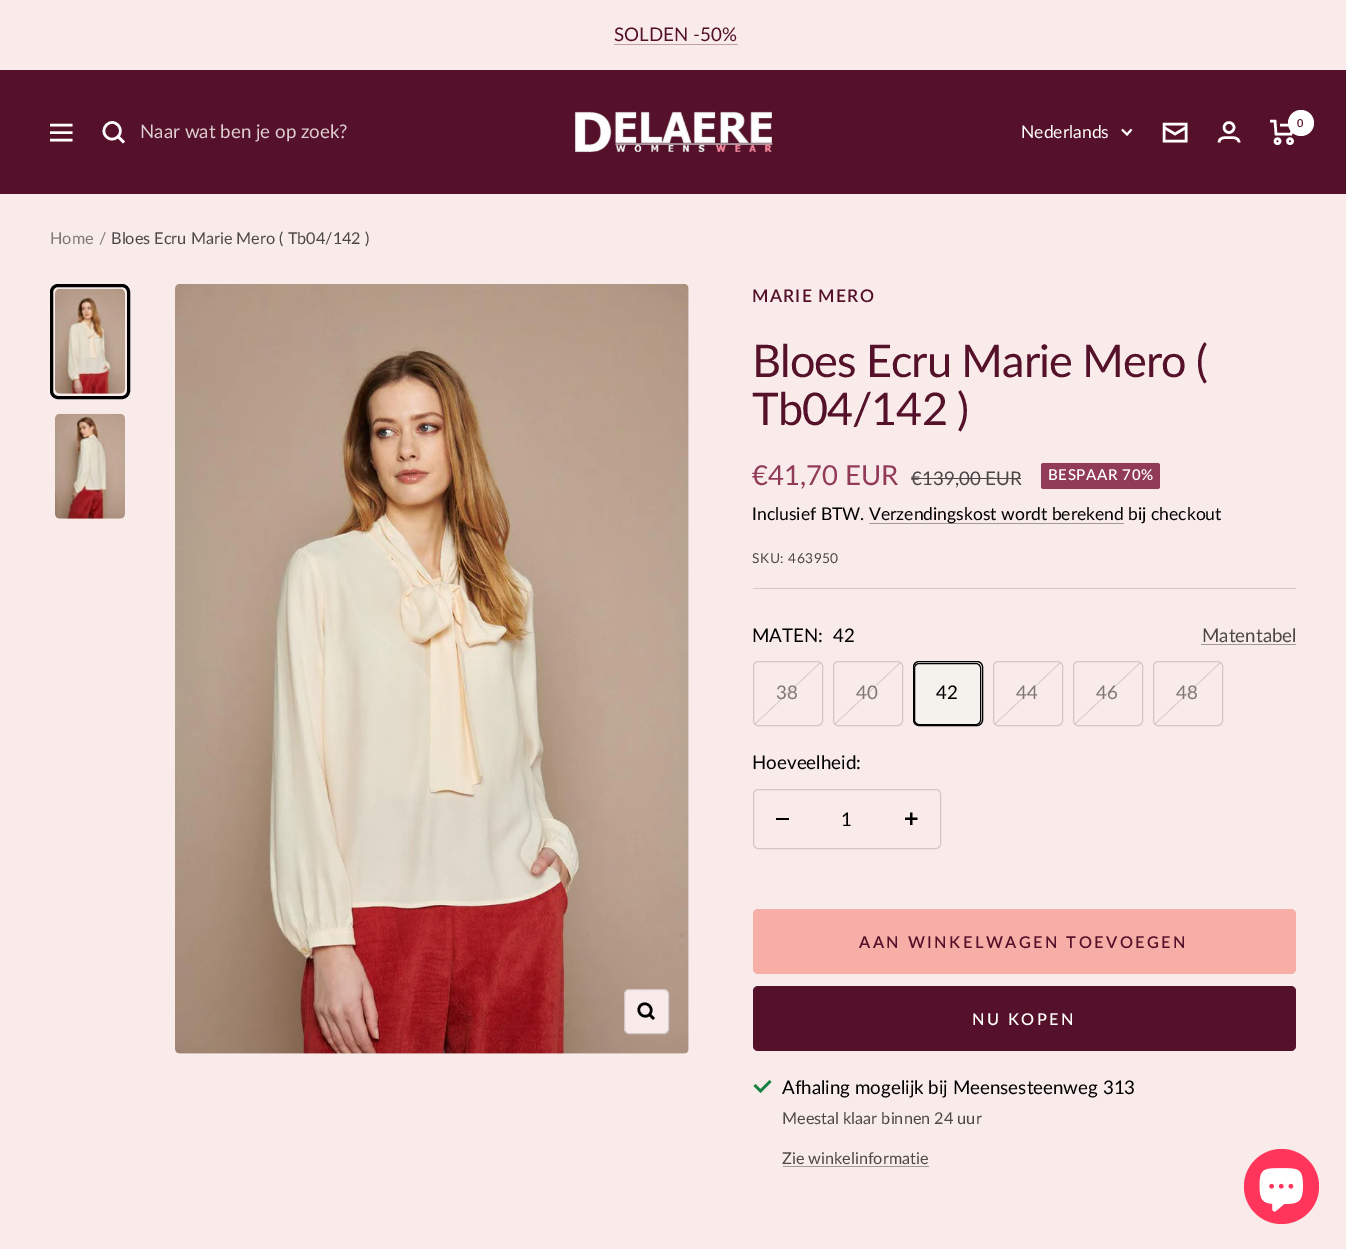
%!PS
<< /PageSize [1346 1249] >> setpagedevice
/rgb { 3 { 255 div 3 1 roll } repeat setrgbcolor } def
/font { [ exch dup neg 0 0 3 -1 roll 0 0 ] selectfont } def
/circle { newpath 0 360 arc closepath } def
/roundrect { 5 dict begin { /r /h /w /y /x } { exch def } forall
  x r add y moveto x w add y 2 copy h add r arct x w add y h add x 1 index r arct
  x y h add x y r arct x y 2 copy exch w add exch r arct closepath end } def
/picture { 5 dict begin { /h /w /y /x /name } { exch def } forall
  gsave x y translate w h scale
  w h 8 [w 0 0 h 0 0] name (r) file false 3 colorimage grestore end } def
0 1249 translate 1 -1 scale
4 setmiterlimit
249 235 233 rgb
0 0 1346 1249 rectfill
192 159 166 rgb
614 44 124 1 rectfill
86 17 42 rgb
0 70 1346 124 rectfill
255 255 255 rgb
2.5 setlinewidth
50 125 moveto 72.5 125 lineto 50 140 moveto 72.5 140 lineto closepath 50 132.5 moveto 72.5 132.5 lineto closepath stroke
118 136.5 moveto 125.5 129 114 117 106.5 125 curveto 98.5 133 110 144.5 118 136.5 curveto closepath 118 136.5 moveto 124 142.5 lineto stroke
(img/1.rgb) 575 111 198 42 picture
1186 127.5 moveto 1175 134 lineto 1164 127.5 lineto 1164 124 moveto 1186 124 lineto 1186 141 lineto 1164 141 lineto closepath stroke
1229 127.5 5 circle stroke
1219 142.5 moveto 1219 137 1225 137.5 1229 137.5 curveto 1232.5 137.5 1239 137 1239 142.5 curveto stroke
1270 121 moveto 1275 121 lineto 1276 134 lineto 1291 134 lineto 1294 125 lineto 1280 125 lineto stroke
1277.5 141.2 2.5 circle stroke
1290 141.2 2.5 circle stroke
1301 123 13 circle fill
1.9 setlinewidth
1122 129.5 moveto 1127 134.5 lineto 1131.5 129.5 lineto stroke
(img/2.rgb) 55 288 70 106 picture
0 0 0 rgb
3 setlinewidth
51.5 285.5 77 112 6.5 roundrect stroke
(img/3.rgb) 55 413 70 106 picture
245 241 236 rgb
175 284 514 770 5 roundrect fill
(img/4.rgb) 175 284 514 770 picture
249 235 233 rgb
624.5 989.5 44 44 4.5 roundrect gsave fill grestore
212 200 198 rgb
1 setlinewidth
stroke
0 0 0 rgb
2.5 setlinewidth
649.5 1014.5 moveto 655 1008.5 646.5 1000 640.5 1005.5 curveto 635 1011.5 643.5 1020 649.5 1014.5 curveto closepath 649.5 1014.5 moveto 654 1019 lineto stroke
212 200 198 rgb
753 588 543 1 rectfill
75 71 70 rgb
911 478 110 1 rectfill
145 59 89 rgb
1041 463 119 26 2.5 roundrect fill
162 153 151 rgb
869 523 255 1 rectfill
1201 644 95 1 rectfill
gsave 754 663 moveto 821 663 lineto 821 725 lineto 754 725 lineto closepath clip newpath
<< /ShadingType 2 /ColorSpace /DeviceRGB /Coords [756 660 819 727] /Extend [true true] /Function << /FunctionType 3 /Domain [0 1] /Functions [<< /FunctionType 2 /Domain [0 1] /C0 [0.976 0.922 0.914] /C1 [0.976 0.922 0.914] /N 1 >> << /FunctionType 2 /Domain [0 1] /C0 [0.976 0.922 0.914] /C1 [0.831 0.784 0.776] /N 1 >> << /FunctionType 2 /Domain [0 1] /C0 [0.831 0.784 0.776] /C1 [0.976 0.922 0.914] /N 1 >> << /FunctionType 2 /Domain [0 1] /C0 [0.976 0.922 0.914] /C1 [0.976 0.922 0.914] /N 1 >>] /Bounds [0.49 0.5 0.51] /Encode [0 1 0 1 0 1 0 1] >> >> shfill grestore
212 200 198 rgb
1 setlinewidth
753.5 661.5 69 64 4.5 roundrect stroke
gsave 834 663 moveto 901 663 lineto 901 725 lineto 834 725 lineto closepath clip newpath
<< /ShadingType 2 /ColorSpace /DeviceRGB /Coords [836 660 899 727] /Extend [true true] /Function << /FunctionType 3 /Domain [0 1] /Functions [<< /FunctionType 2 /Domain [0 1] /C0 [0.976 0.922 0.914] /C1 [0.976 0.922 0.914] /N 1 >> << /FunctionType 2 /Domain [0 1] /C0 [0.976 0.922 0.914] /C1 [0.831 0.784 0.776] /N 1 >> << /FunctionType 2 /Domain [0 1] /C0 [0.831 0.784 0.776] /C1 [0.976 0.922 0.914] /N 1 >> << /FunctionType 2 /Domain [0 1] /C0 [0.976 0.922 0.914] /C1 [0.976 0.922 0.914] /N 1 >>] /Bounds [0.49 0.5 0.51] /Encode [0 1 0 1 0 1 0 1] >> >> shfill grestore
833.5 661.5 69 64 4.5 roundrect stroke
245 241 236 rgb
913.5 661.5 69 64 4.5 roundrect gsave fill grestore
212 200 198 rgb
stroke
0 0 0 rgb
913.5 661.5 69 64 5.5 roundrect stroke
914.5 663.5 66 61 4.5 roundrect stroke
gsave 994 663 moveto 1061 663 lineto 1061 725 lineto 994 725 lineto closepath clip newpath
<< /ShadingType 2 /ColorSpace /DeviceRGB /Coords [996 660 1059 727] /Extend [true true] /Function << /FunctionType 3 /Domain [0 1] /Functions [<< /FunctionType 2 /Domain [0 1] /C0 [0.976 0.922 0.914] /C1 [0.976 0.922 0.914] /N 1 >> << /FunctionType 2 /Domain [0 1] /C0 [0.976 0.922 0.914] /C1 [0.831 0.784 0.776] /N 1 >> << /FunctionType 2 /Domain [0 1] /C0 [0.831 0.784 0.776] /C1 [0.976 0.922 0.914] /N 1 >> << /FunctionType 2 /Domain [0 1] /C0 [0.976 0.922 0.914] /C1 [0.976 0.922 0.914] /N 1 >>] /Bounds [0.49 0.5 0.51] /Encode [0 1 0 1 0 1 0 1] >> >> shfill grestore
212 200 198 rgb
993.5 661.5 69 64 4.5 roundrect stroke
gsave 1074 663 moveto 1141 663 lineto 1141 725 lineto 1074 725 lineto closepath clip newpath
<< /ShadingType 2 /ColorSpace /DeviceRGB /Coords [1076 660 1139 727] /Extend [true true] /Function << /FunctionType 3 /Domain [0 1] /Functions [<< /FunctionType 2 /Domain [0 1] /C0 [0.976 0.922 0.914] /C1 [0.976 0.922 0.914] /N 1 >> << /FunctionType 2 /Domain [0 1] /C0 [0.976 0.922 0.914] /C1 [0.831 0.784 0.776] /N 1 >> << /FunctionType 2 /Domain [0 1] /C0 [0.831 0.784 0.776] /C1 [0.976 0.922 0.914] /N 1 >> << /FunctionType 2 /Domain [0 1] /C0 [0.976 0.922 0.914] /C1 [0.976 0.922 0.914] /N 1 >>] /Bounds [0.49 0.5 0.51] /Encode [0 1 0 1 0 1 0 1] >> >> shfill grestore
1073.5 661.5 69 64 4.5 roundrect stroke
gsave 1154 663 moveto 1221 663 lineto 1221 725 lineto 1154 725 lineto closepath clip newpath
<< /ShadingType 2 /ColorSpace /DeviceRGB /Coords [1156 660 1219 727] /Extend [true true] /Function << /FunctionType 3 /Domain [0 1] /Functions [<< /FunctionType 2 /Domain [0 1] /C0 [0.976 0.922 0.914] /C1 [0.976 0.922 0.914] /N 1 >> << /FunctionType 2 /Domain [0 1] /C0 [0.976 0.922 0.914] /C1 [0.831 0.784 0.776] /N 1 >> << /FunctionType 2 /Domain [0 1] /C0 [0.831 0.784 0.776] /C1 [0.976 0.922 0.914] /N 1 >> << /FunctionType 2 /Domain [0 1] /C0 [0.976 0.922 0.914] /C1 [0.976 0.922 0.914] /N 1 >>] /Bounds [0.49 0.5 0.51] /Encode [0 1 0 1 0 1 0 1] >> >> shfill grestore
1153.5 661.5 69 64 4.5 roundrect stroke
753.5 789.5 187 59 4.5 roundrect stroke
0 0 0 rgb
776 818 13 2 rectfill
(img/5.rgb) 905 812 13 13 picture
247 174 166 rgb
753 909 543 65 5 roundrect fill
86 17 42 rgb
753 986 543 65 5 roundrect fill
22 131 66 rgb
2.5 setlinewidth
754.5 1085 moveto 760.5 1091 lineto 770.5 1081 lineto stroke
162 153 151 rgb
783 1166 146 1 rectfill
255 53 91 rgb
1281.5 1186.5 37.5 circle fill
(img/6.rgb) 1259 1168 44 44 picture
/Lato-Regular 18.75 font
86 17 42 rgb
614 41 moveto (SOLDEN -50%) show
221 207 212 rgb
140 138 moveto (Naar wat ben je op zoek?) show
/Lato-SemiBold 11 font
86 17 42 rgb
1297 127 moveto (0) show
/Lato-Regular 17.5 font
255 255 255 rgb
1021 138 moveto (Nederlands) show
/Lato-Regular 16.25 font
127 120 119 rgb
50 244 moveto (Home) show
99 244 moveto (/) show
75 71 70 rgb
111 244 moveto (Bloes Ecru Marie Mero \( Tb04/142 \)) show
/Lato-SemiBold 17.5 font
86 17 42 rgb
752 302 moveto 1.25 0 (MARIE MERO) ashow
/Lato-Regular 45 font
752 377 moveto -1 0 (Bloes Ecru Marie Mero \() ashow
752 425 moveto -1 0 (Tb04/142 \)) ashow
/Lato-Regular 27.5 font
145 59 89 rgb
752 485 moveto (€41,70 EUR) show
/Lato-Regular 18.75 font
75 71 70 rgb
911 485 moveto (€139,00 EUR) show
/Lato-SemiBold 15 font
255 255 255 rgb
1048 480 moveto 0.6 0 (BESPAAR 70%) ashow
/Lato-Regular 17.5 font
0 0 0 rgb
752 520 moveto (Inclusief BTW.) show
869 520 moveto (Verzendingskost wordt berekend bij checkout) show
/Lato-Regular 13.75 font
75 71 70 rgb
752 563 moveto 0.5 0 (SKU: 463950) ashow
/Lato-Regular 18.75 font
0 0 0 rgb
752 642 moveto (MATEN:) show
833 642 moveto (42) show
75 71 70 rgb
1202 642 moveto (Matentabel) show
127 120 119 rgb
776 699 moveto (38) show
856 699 moveto (40) show
0 0 0 rgb
936 699 moveto (42) show
127 120 119 rgb
[
  [(44) 1016 699]
  [(46) 1096 699]
  [(48) 1176 699]
] { aload pop moveto show } forall
0 0 0 rgb
752 769 moveto (Hoeveelheid:) show
841 826 moveto (1) show
/Lato-SemiBold 16.25 font
86 17 42 rgb
859 948 moveto 2.5 0 (AAN WINKELWAGEN TOEVOEGEN) ashow
255 255 255 rgb
972 1025 moveto 2.5 0 (NU KOPEN) ashow
/Lato-Regular 18.75 font
0 0 0 rgb
782 1094 moveto (Afhaling mogelijk bij Meensesteenweg 313) show
/Lato-Regular 16.25 font
75 71 70 rgb
782 1124 moveto (Meestal klaar binnen 24 uur) show
782 1164 moveto (Zie winkelinformatie) show
showpage
